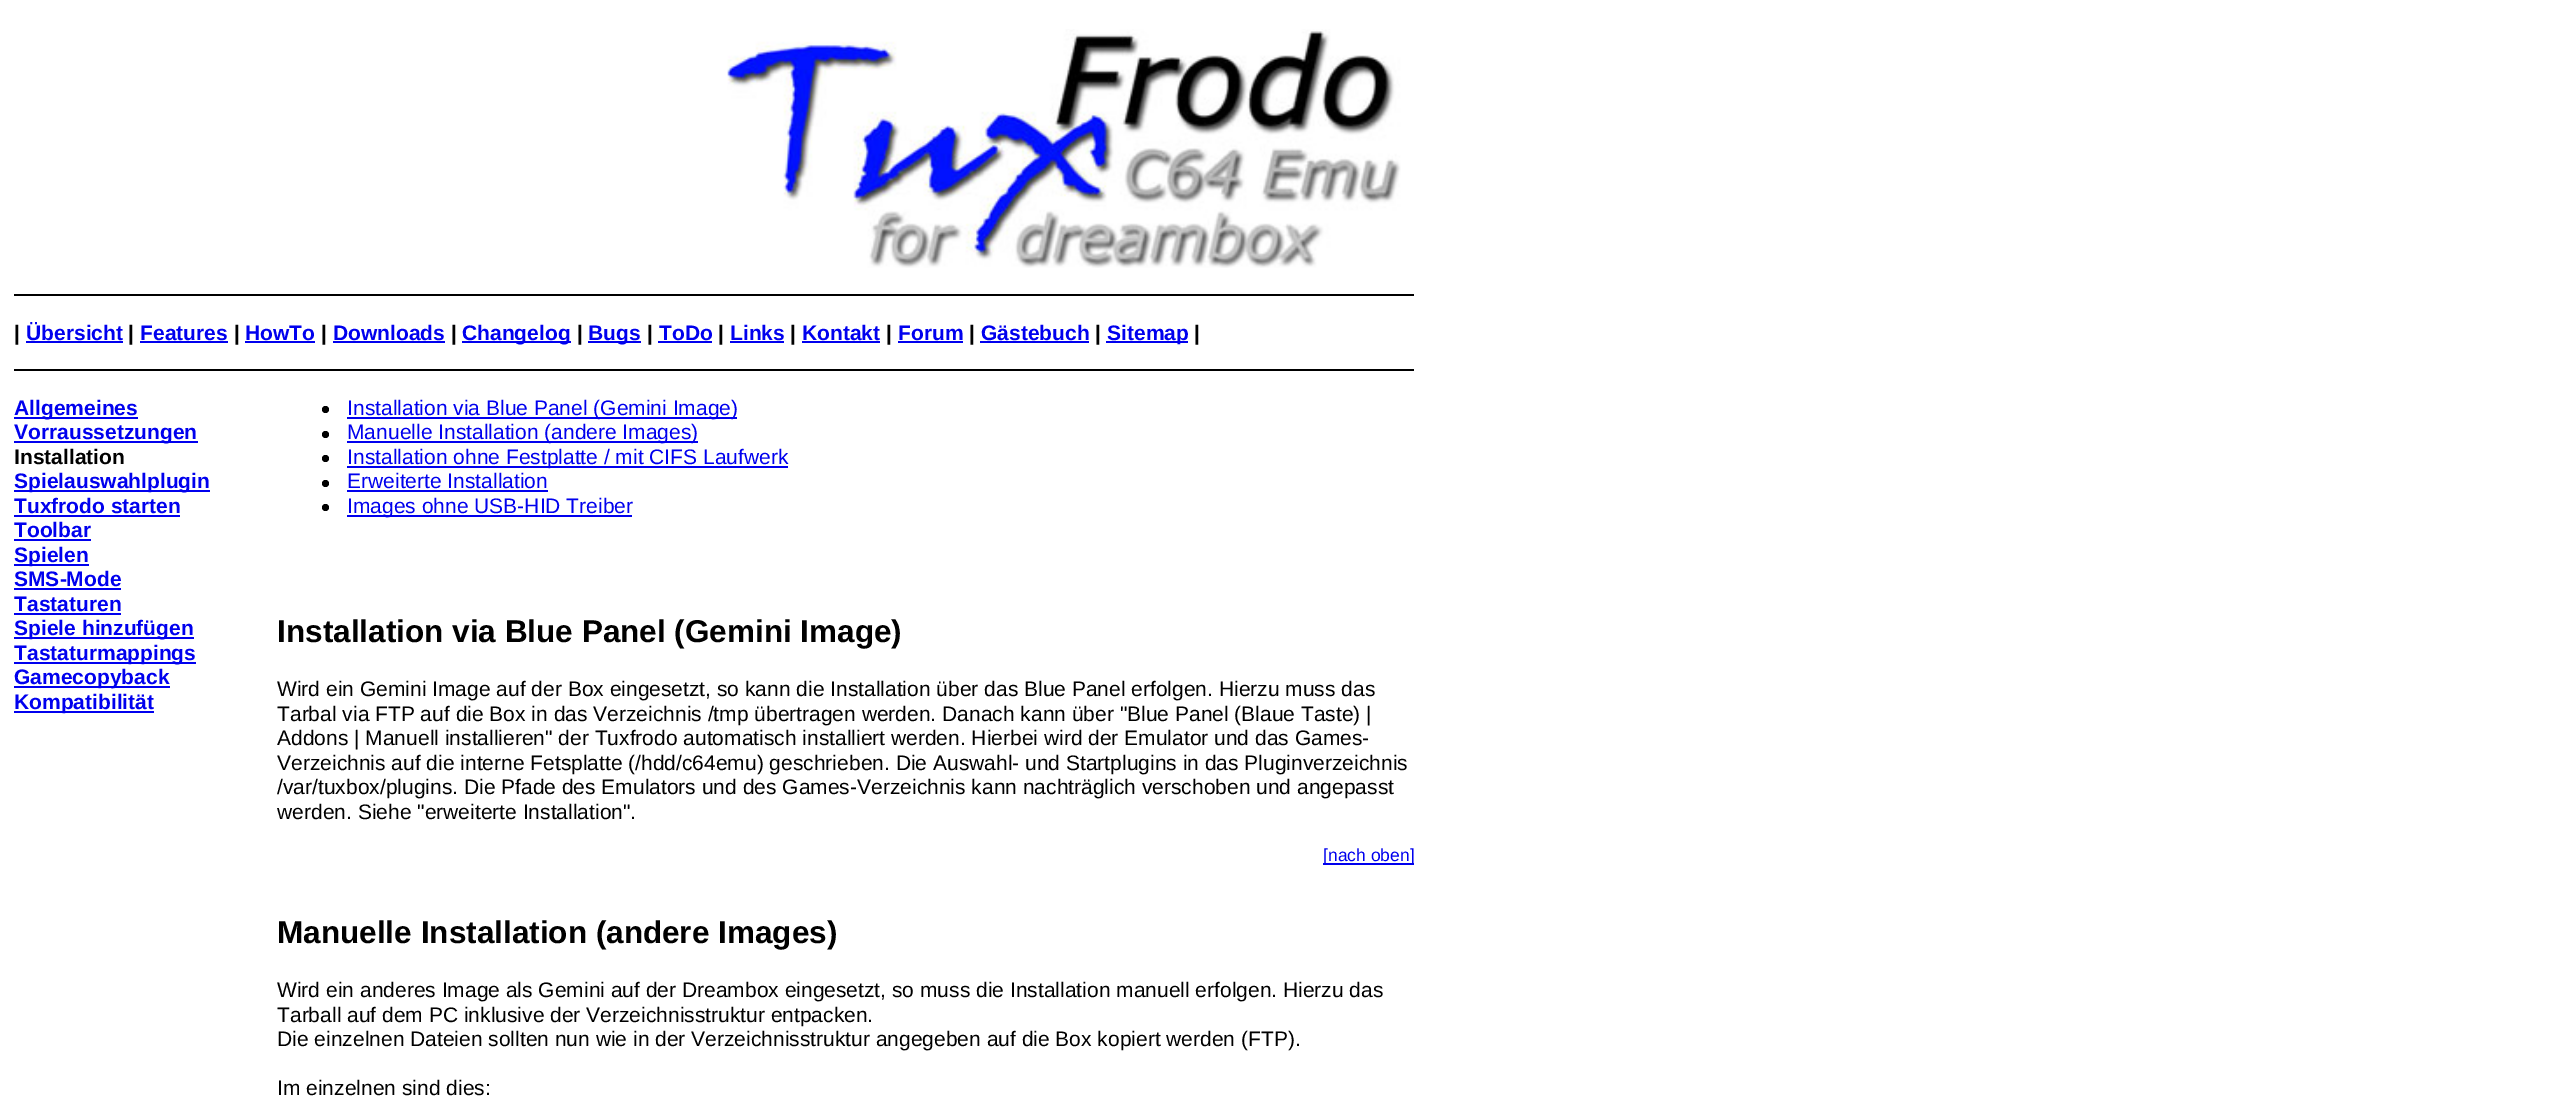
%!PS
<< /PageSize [2553 1110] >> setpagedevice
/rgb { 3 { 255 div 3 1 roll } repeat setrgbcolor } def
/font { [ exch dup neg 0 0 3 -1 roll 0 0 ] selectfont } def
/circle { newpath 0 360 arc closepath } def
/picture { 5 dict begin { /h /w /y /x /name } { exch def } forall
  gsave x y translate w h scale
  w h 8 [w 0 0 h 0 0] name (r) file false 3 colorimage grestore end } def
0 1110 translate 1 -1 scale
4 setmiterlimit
255 255 255 rgb
0 0 2553 1110 rectfill
0 0 0 rgb
14 294 1400 2 rectfill
(img/1.rgb) 727 29 674 239 picture
[
  [26 341 97 2 0 0 238]
  [140 341 88 2 0 0 238]
  [245 341 70 2 0 0 238]
  [333 341 112 2 0 0 238]
  [462 341 109 2 0 0 238]
  [588 341 53 2 0 0 238]
  [658 341 54 2 0 0 238]
  [730 341 54 2 0 0 238]
  [802 341 78 2 0 0 238]
  [898 341 65 2 0 0 238]
  [980 341 109 2 0 0 238]
  [1106 341 82 2 0 0 238]
  [14 369 1400 2 0 0 0]
  [14 417 124 2 0 0 238]
  [14 441 184 2 0 0 238]
  [14 490 196 2 0 0 238]
  [14 515 166 2 0 0 238]
  [14 539 77 2 0 0 238]
  [14 564 75 2 0 0 238]
  [14 588 107 2 0 0 238]
  [14 613 107 2 0 0 238]
  [14 637 180 2 0 0 238]
  [14 662 182 2 0 0 238]
  [14 686 156 2 0 0 238]
  [14 711 140 2 0 0 238]
] { aload pop rgb rectfill } forall
0 0 0 rgb
325.5 409.5 3.5 circle fill
0 0 238 rgb
347 417 390 2 rectfill
0 0 0 rgb
325.5 434.5 3.5 circle fill
0 0 238 rgb
347 441 351 2 rectfill
0 0 0 rgb
325.5 458.5 3.5 circle fill
0 0 238 rgb
347 466 441 2 rectfill
0 0 0 rgb
325.5 483.5 3.5 circle fill
0 0 238 rgb
347 490 201 2 rectfill
0 0 0 rgb
325.5 507.5 3.5 circle fill
0 0 238 rgb
347 515 285 2 rectfill
1323 863 91 2 rectfill
/LiberationSans-Bold 21 font
0 0 0 rgb
14 340 moveto (|) show
0 0 238 rgb
26 340 moveto (Übersicht) show
0 0 0 rgb
128 340 moveto (|) show
0 0 238 rgb
140 340 moveto (Features) show
0 0 0 rgb
234 340 moveto (|) show
0 0 238 rgb
245 340 moveto (HowTo) show
0 0 0 rgb
321 340 moveto (|) show
0 0 238 rgb
333 340 moveto (Downloads) show
0 0 0 rgb
451 340 moveto (|) show
0 0 238 rgb
462 340 moveto (Changelog) show
0 0 0 rgb
577 340 moveto (|) show
0 0 238 rgb
588 340 moveto (Bugs) show
0 0 0 rgb
647 340 moveto (|) show
0 0 238 rgb
659 340 moveto (ToDo) show
0 0 0 rgb
718 340 moveto (|) show
0 0 238 rgb
730 340 moveto (Links) show
0 0 0 rgb
790 340 moveto (|) show
0 0 238 rgb
802 340 moveto (Kontakt) show
0 0 0 rgb
886 340 moveto (|) show
0 0 238 rgb
898 340 moveto (Forum) show
0 0 0 rgb
969 340 moveto (|) show
0 0 238 rgb
981 340 moveto (Gästebuch) show
0 0 0 rgb
1095 340 moveto (|) show
0 0 238 rgb
1107 340 moveto (Sitemap) show
0 0 0 rgb
1194 340 moveto (|) show
0 0 238 rgb
14 415 moveto (Allgemeines) show
14 439 moveto (Vorraussetzungen) show
0 0 0 rgb
14 464 moveto (Installation) show
0 0 238 rgb
[
  [(Spielauswahlplugin) 14 488]
  [(Tuxfrodo starten) 14 513]
  [(Toolbar) 14 537]
  [(Spielen) 14 562]
  [(SMS-Mode) 14 586]
  [(Tastaturen) 14 611]
  [(Spiele hinzufügen) 14 635]
  [(Tastaturmappings) 14 660]
  [(Gamecopyback) 14 684]
  [(Kompatibilität) 14 709]
] { aload pop moveto show } forall
/LiberationSans-Regular 21 font
[
  [(Installation via Blue Panel \(Gemini Image\)) 347 415]
  [(Manuelle Installation \(andere Images\)) 347 439]
  [(Installation ohne Festplatte / mit CIFS Laufwerk) 347 464]
  [(Erweiterte Installation) 347 488]
  [(Images ohne USB-HID Treiber) 347 513]
] { aload pop moveto show } forall
/LiberationSans-Bold 31.5 font
0 0 0 rgb
277 642 moveto (Installation via Blue Panel \(Gemini Image\)) show
/LiberationSans-Regular 21 font
[
  [(Wird ein Gemini Image auf der Box eingesetzt, so kann die Installation über das Blue Panel erfolgen. Hierzu muss das) 277 696]
  [(Tarbal via FTP auf die Box in das Verzeichnis /tmp übertragen werden. Danach kann über "Blue Panel \(Blaue Taste\) |) 277 721]
  [(Addons | Manuell installieren" der Tuxfrodo automatisch installiert werden. Hierbei wird der Emulator und das Games-) 277 745]
  [(Verzeichnis auf die interne Fetsplatte \(/hdd/c64emu\) geschrieben. Die Auswahl- und Startplugins in das Pluginverzeichnis) 277 770]
  [(/var/tuxbox/plugins. Die Pfade des Emulators und des Games-Verzeichnis kann nachträglich verschoben und angepasst) 277 794]
  [(werden. Siehe "erweiterte Installation".) 277 819]
] { aload pop moveto show } forall
/LiberationSans-Regular 17.5 font
0 0 238 rgb
1323 861 moveto ([nach oben]) show
/LiberationSans-Bold 31.5 font
0 0 0 rgb
277 943 moveto (Manuelle Installation \(andere Images\)) show
/LiberationSans-Regular 21 font
[
  [(Wird ein anderes Image als Gemini auf der Dreambox eingesetzt, so muss die Installation manuell erfolgen. Hierzu das) 277 997]
  [(Tarball auf dem PC inklusive der Verzeichnisstruktur entpacken.) 277 1022]
  [(Die einzelnen Dateien sollten nun wie in der Verzeichnisstruktur angegeben auf die Box kopiert werden \(FTP\).) 277 1046]
  [(Im einzelnen sind dies:) 277 1095]
] { aload pop moveto show } forall
showpage
